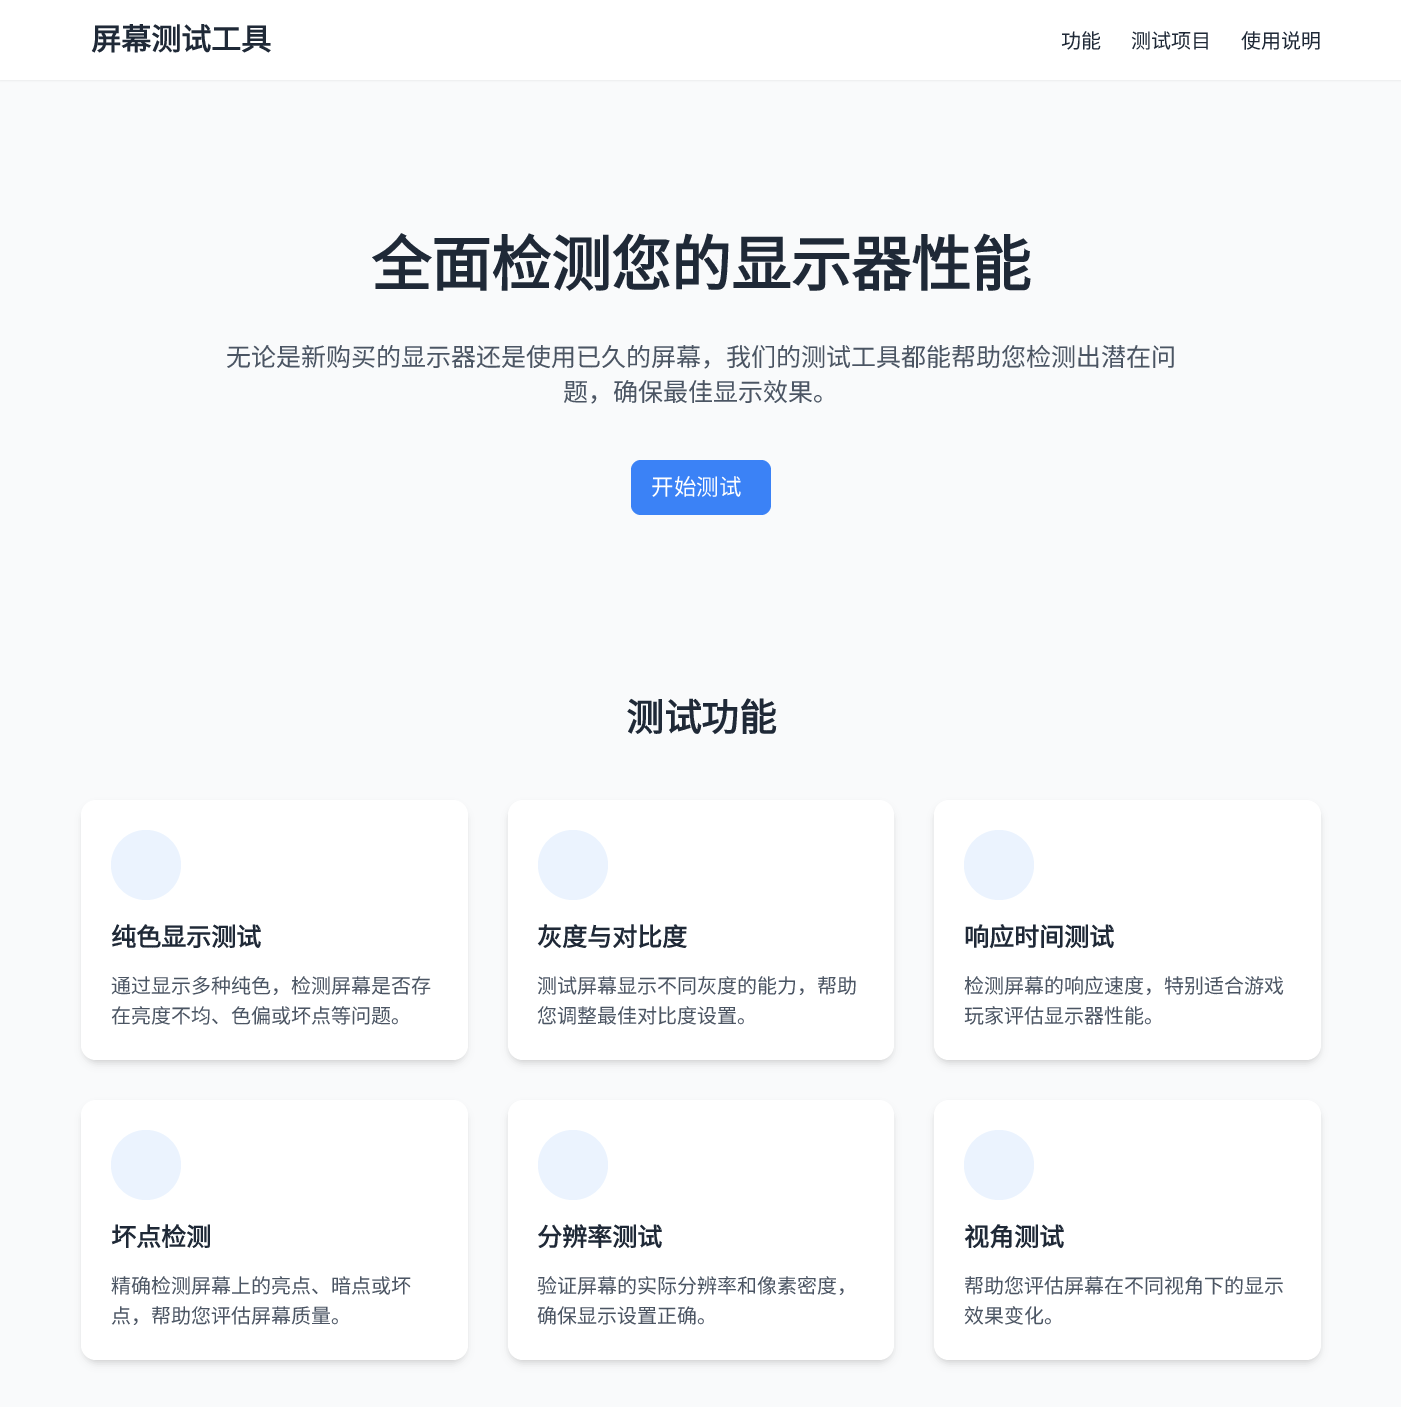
%!PS
<< /PageSize [1401 1407] /PageUsesTransparency true >> setpagedevice
/rgb { 3 { 255 div 3 1 roll } repeat setrgbcolor } def
/font { [ exch dup neg 0 0 3 -1 roll 0 0 ] selectfont } def
/alpha { dup .setfillconstantalpha .setstrokeconstantalpha } def
/circle { newpath 0 360 arc closepath } def
/roundrect { 5 dict begin { /r /h /w /y /x } { exch def } forall
  x r add y moveto x w add y 2 copy h add r arct x w add y h add x 1 index r arct
  x y h add x y r arct x y 2 copy exch w add exch r arct closepath end } def
/shadow { 12 dict begin { /a /b /q /h /w /y /x } { exch def } forall gsave /was 0 def
  9 -2 -9 { dup b mul 4 div /e exch def 1 sub .425 mul 2.718 exch exp 1 add a .99 .min exch div /now exch def
    1 1 now sub 1 was sub div sub alpha /was now def
    w h .min e 2 mul add 0 gt { x e sub y e sub w e 2 mul add h e 2 mul add
      q e add b .6 mul add w h .min 2 div e add .min 0 .max roundrect fill } if } for grestore end } def
0 .pushpdf14devicefilter
0 1407 translate 1 -1 scale
4 setmiterlimit
249 250 251 rgb
0 0 1401 1407 rectfill
0 0 0 rgb
0 1 1401 80 0 1 0.05 shadow
255 255 255 rgb
0 0 1401 80 rectfill
59 130 246 rgb
631 460 140 55 10 roundrect fill
0 0 0 rgb
84 805 381 255 13 2.5 0.1 shadow
83 806 383 258 14 4 0.1 shadow
255 255 255 rgb
81 800 387 260 15 roundrect fill
235 243 254 rgb
146 865 35 circle fill
0 0 0 rgb
510 805 381 255 13 2.5 0.1 shadow
509 806 384 258 14 4 0.1 shadow
255 255 255 rgb
508 800 386 260 15 roundrect fill
235 243 254 rgb
573 865 35 circle fill
0 0 0 rgb
936 805 383 255 13 2.5 0.1 shadow
935 806 385 258 14 4 0.1 shadow
255 255 255 rgb
934 800 387 260 15 roundrect fill
235 243 254 rgb
999 865 35 circle fill
0 0 0 rgb
84 1105 381 255 13 2.5 0.1 shadow
83 1106 383 258 14 4 0.1 shadow
255 255 255 rgb
81 1100 387 260 15 roundrect fill
235 243 254 rgb
146 1165 35 circle fill
0 0 0 rgb
510 1105 381 255 13 2.5 0.1 shadow
509 1106 384 258 14 4 0.1 shadow
255 255 255 rgb
508 1100 386 260 15 roundrect fill
235 243 254 rgb
573 1165 35 circle fill
0 0 0 rgb
936 1105 383 255 13 2.5 0.1 shadow
935 1106 385 258 14 4 0.1 shadow
255 255 255 rgb
934 1100 387 260 15 roundrect fill
235 243 254 rgb
999 1165 35 circle fill
/NotoSansCJKSC-Bold 30 font
31 41 55 rgb
91 50 moveto (屏幕测试工具) show
/NotoSansCJKSC-Regular 20 font
[
  [(功能) 1061 48]
  [(测试项目) 1131 48]
  [(使用说明) 1241 48]
] { aload pop moveto show } forall
/NotoSansCJKSC-Bold 60 font
371 286 moveto (全面检测您的显示器性能) show
/NotoSansCJKSC-Regular 25 font
75 85 99 rgb
226 366 moveto (无论是新购买的显示器还是使用已久的屏幕，我们的测试工具都能帮助您检测出潜在问) show
563 401 moveto (题，确保最佳显示效果。) show
/NotoSansCJKSC-Regular 22.5 font
255 255 255 rgb
651 495 moveto (开始测试) show
/NotoSansCJKSC-Bold 37.5 font
31 41 55 rgb
626 731 moveto (测试功能) show
/NotoSansCJKSC-Bold 25 font
111 946 moveto (纯色显示测试) show
/NotoSansCJKSC-Regular 20 font
75 85 99 rgb
111 993 moveto (通过显示多种纯色，检测屏幕是否存) show
111 1023 moveto (在亮度不均、色偏或坏点等问题。) show
/NotoSansCJKSC-Bold 25 font
31 41 55 rgb
537 946 moveto (灰度与对比度) show
/NotoSansCJKSC-Regular 20 font
75 85 99 rgb
537 993 moveto (测试屏幕显示不同灰度的能力，帮助) show
537 1023 moveto (您调整最佳对比度设置。) show
/NotoSansCJKSC-Bold 25 font
31 41 55 rgb
964 946 moveto (响应时间测试) show
/NotoSansCJKSC-Regular 20 font
75 85 99 rgb
964 993 moveto (检测屏幕的响应速度，特别适合游戏) show
964 1023 moveto (玩家评估显示器性能。) show
/NotoSansCJKSC-Bold 25 font
31 41 55 rgb
111 1246 moveto (坏点检测) show
/NotoSansCJKSC-Regular 20 font
75 85 99 rgb
111 1293 moveto (精确检测屏幕上的亮点、暗点或坏) show
111 1323 moveto (点，帮助您评估屏幕质量。) show
/NotoSansCJKSC-Bold 25 font
31 41 55 rgb
537 1246 moveto (分辨率测试) show
/NotoSansCJKSC-Regular 20 font
75 85 99 rgb
537 1293 moveto (验证屏幕的实际分辨率和像素密度，) show
537 1323 moveto (确保显示设置正确。) show
/NotoSansCJKSC-Bold 25 font
31 41 55 rgb
964 1246 moveto (视角测试) show
/NotoSansCJKSC-Regular 20 font
75 85 99 rgb
964 1293 moveto (帮助您评估屏幕在不同视角下的显示) show
964 1323 moveto (效果变化。) show
.poppdf14devicefilter showpage
